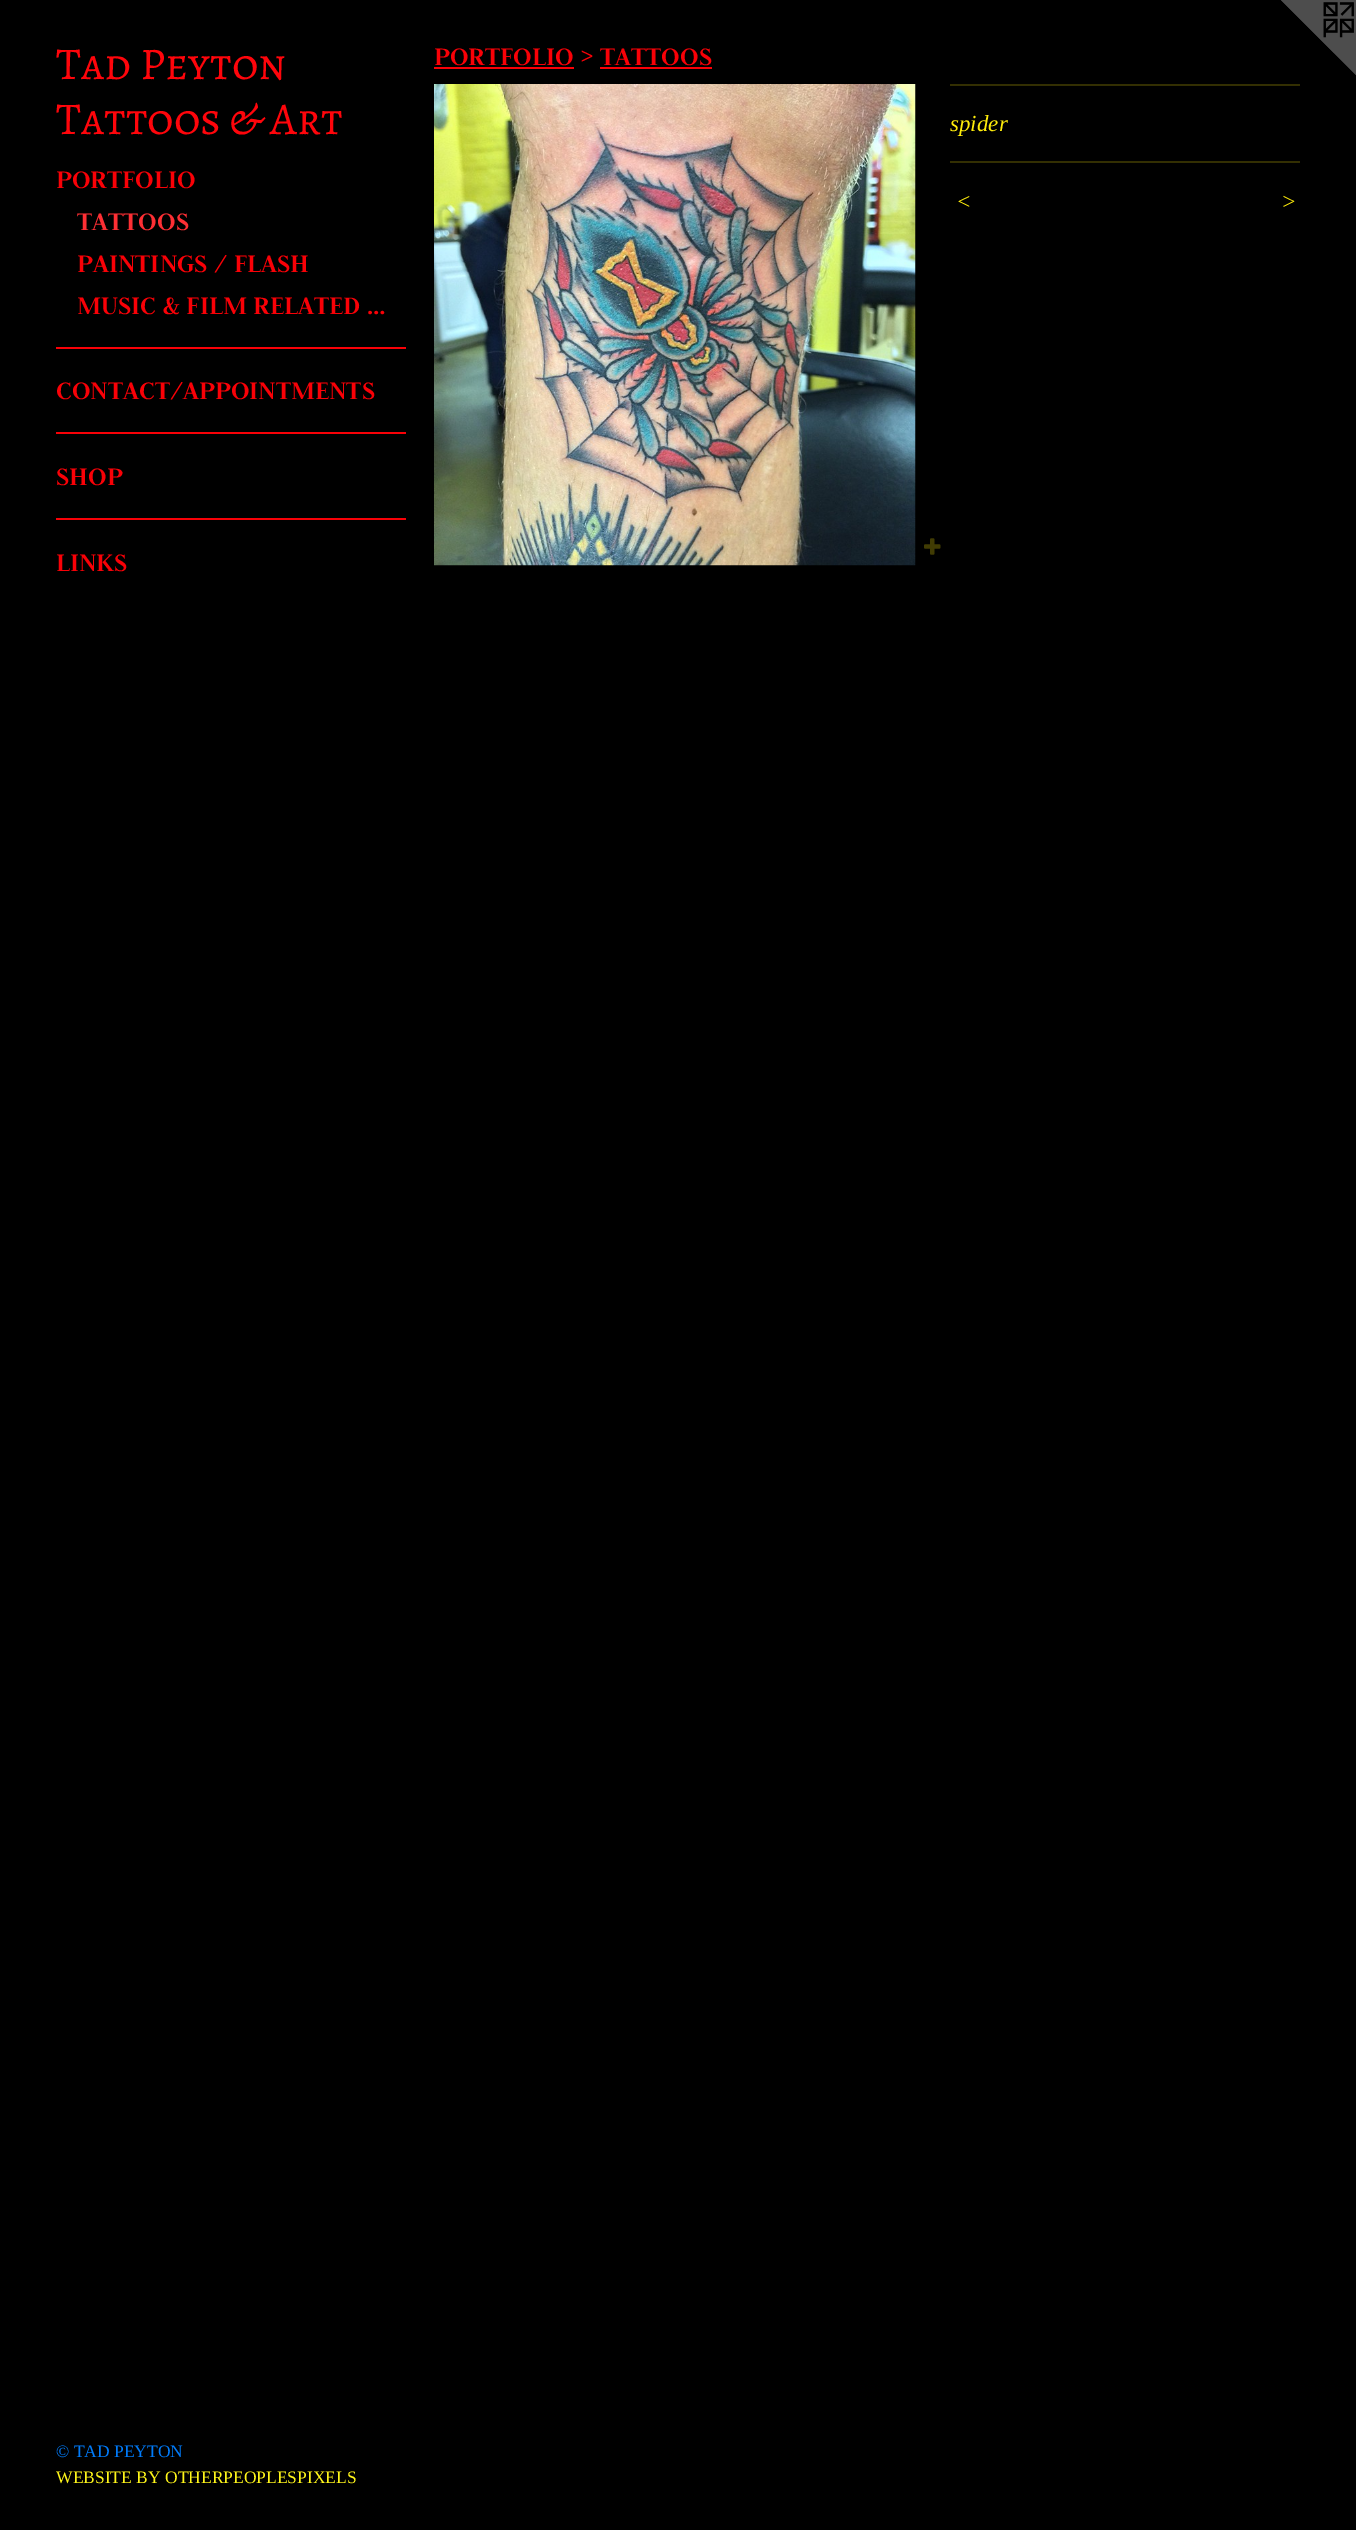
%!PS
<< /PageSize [1356 2530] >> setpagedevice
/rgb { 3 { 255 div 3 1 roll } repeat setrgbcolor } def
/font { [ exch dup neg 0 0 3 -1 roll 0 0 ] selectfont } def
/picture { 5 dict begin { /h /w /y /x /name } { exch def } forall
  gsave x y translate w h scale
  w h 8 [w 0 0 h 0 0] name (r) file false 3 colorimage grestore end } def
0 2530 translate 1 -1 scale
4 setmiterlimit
0 0 0 rgb
0 0 1356 2530 rectfill
[
  [56 347 350 2 249 1 7]
  [56 432 350 2 249 1 7]
  [56 518 350 2 249 1 7]
] { aload pop rgb rectfill } forall
(img/1.rgb) 1281 0 75 75 picture
434 67 140 2 rectfill
600 67 112 2 rectfill
(img/2.rgb) 434 84 482 482 picture
(img/3.rgb) 924 538 17 17 picture
51 47 2 rgb
950 84 350 2 rectfill
950 161 350 2 rectfill
/AlegreyaSC-Regular 45.5 font
255 5 11 rgb
56 79 moveto (Tad Peyton) show
56 134 moveto (Tattoos & Art) show
/Judson-Bold 28 font
249 1 7 rgb
56 188 moveto (PORTFOLIO) show
254 47 52 rgb
77 230 moveto (TATTOOS) show
249 1 7 rgb
[
  [(PAINTINGS / FLASH) 77 272]
  [(MUSIC & FILM RELATED …) 77 314]
  [(CONTACT/APPOINTMENTS) 56 399]
  [(SHOP) 56 485]
  [(LINKS) 56 571]
] { aload pop moveto show } forall
/LiberationSerif-Regular 17.5 font
0 123 250 rgb
56 2457 moveto (© TAD PEYTON) show
255 246 26 rgb
56 2483 moveto (WEBSITE BY OTHERPEOPLESPIXELS) show
/Judson-Bold 28 font
249 1 7 rgb
434 65 moveto (PORTFOLIO > TATTOOS) show
/LiberationSerif-Italic 23 font
254 236 11 rgb
950 131 moveto (spider) show
956 209 moveto 2 0 (<) ashow
1281 209 moveto 2 0 (>) ashow
showpage
